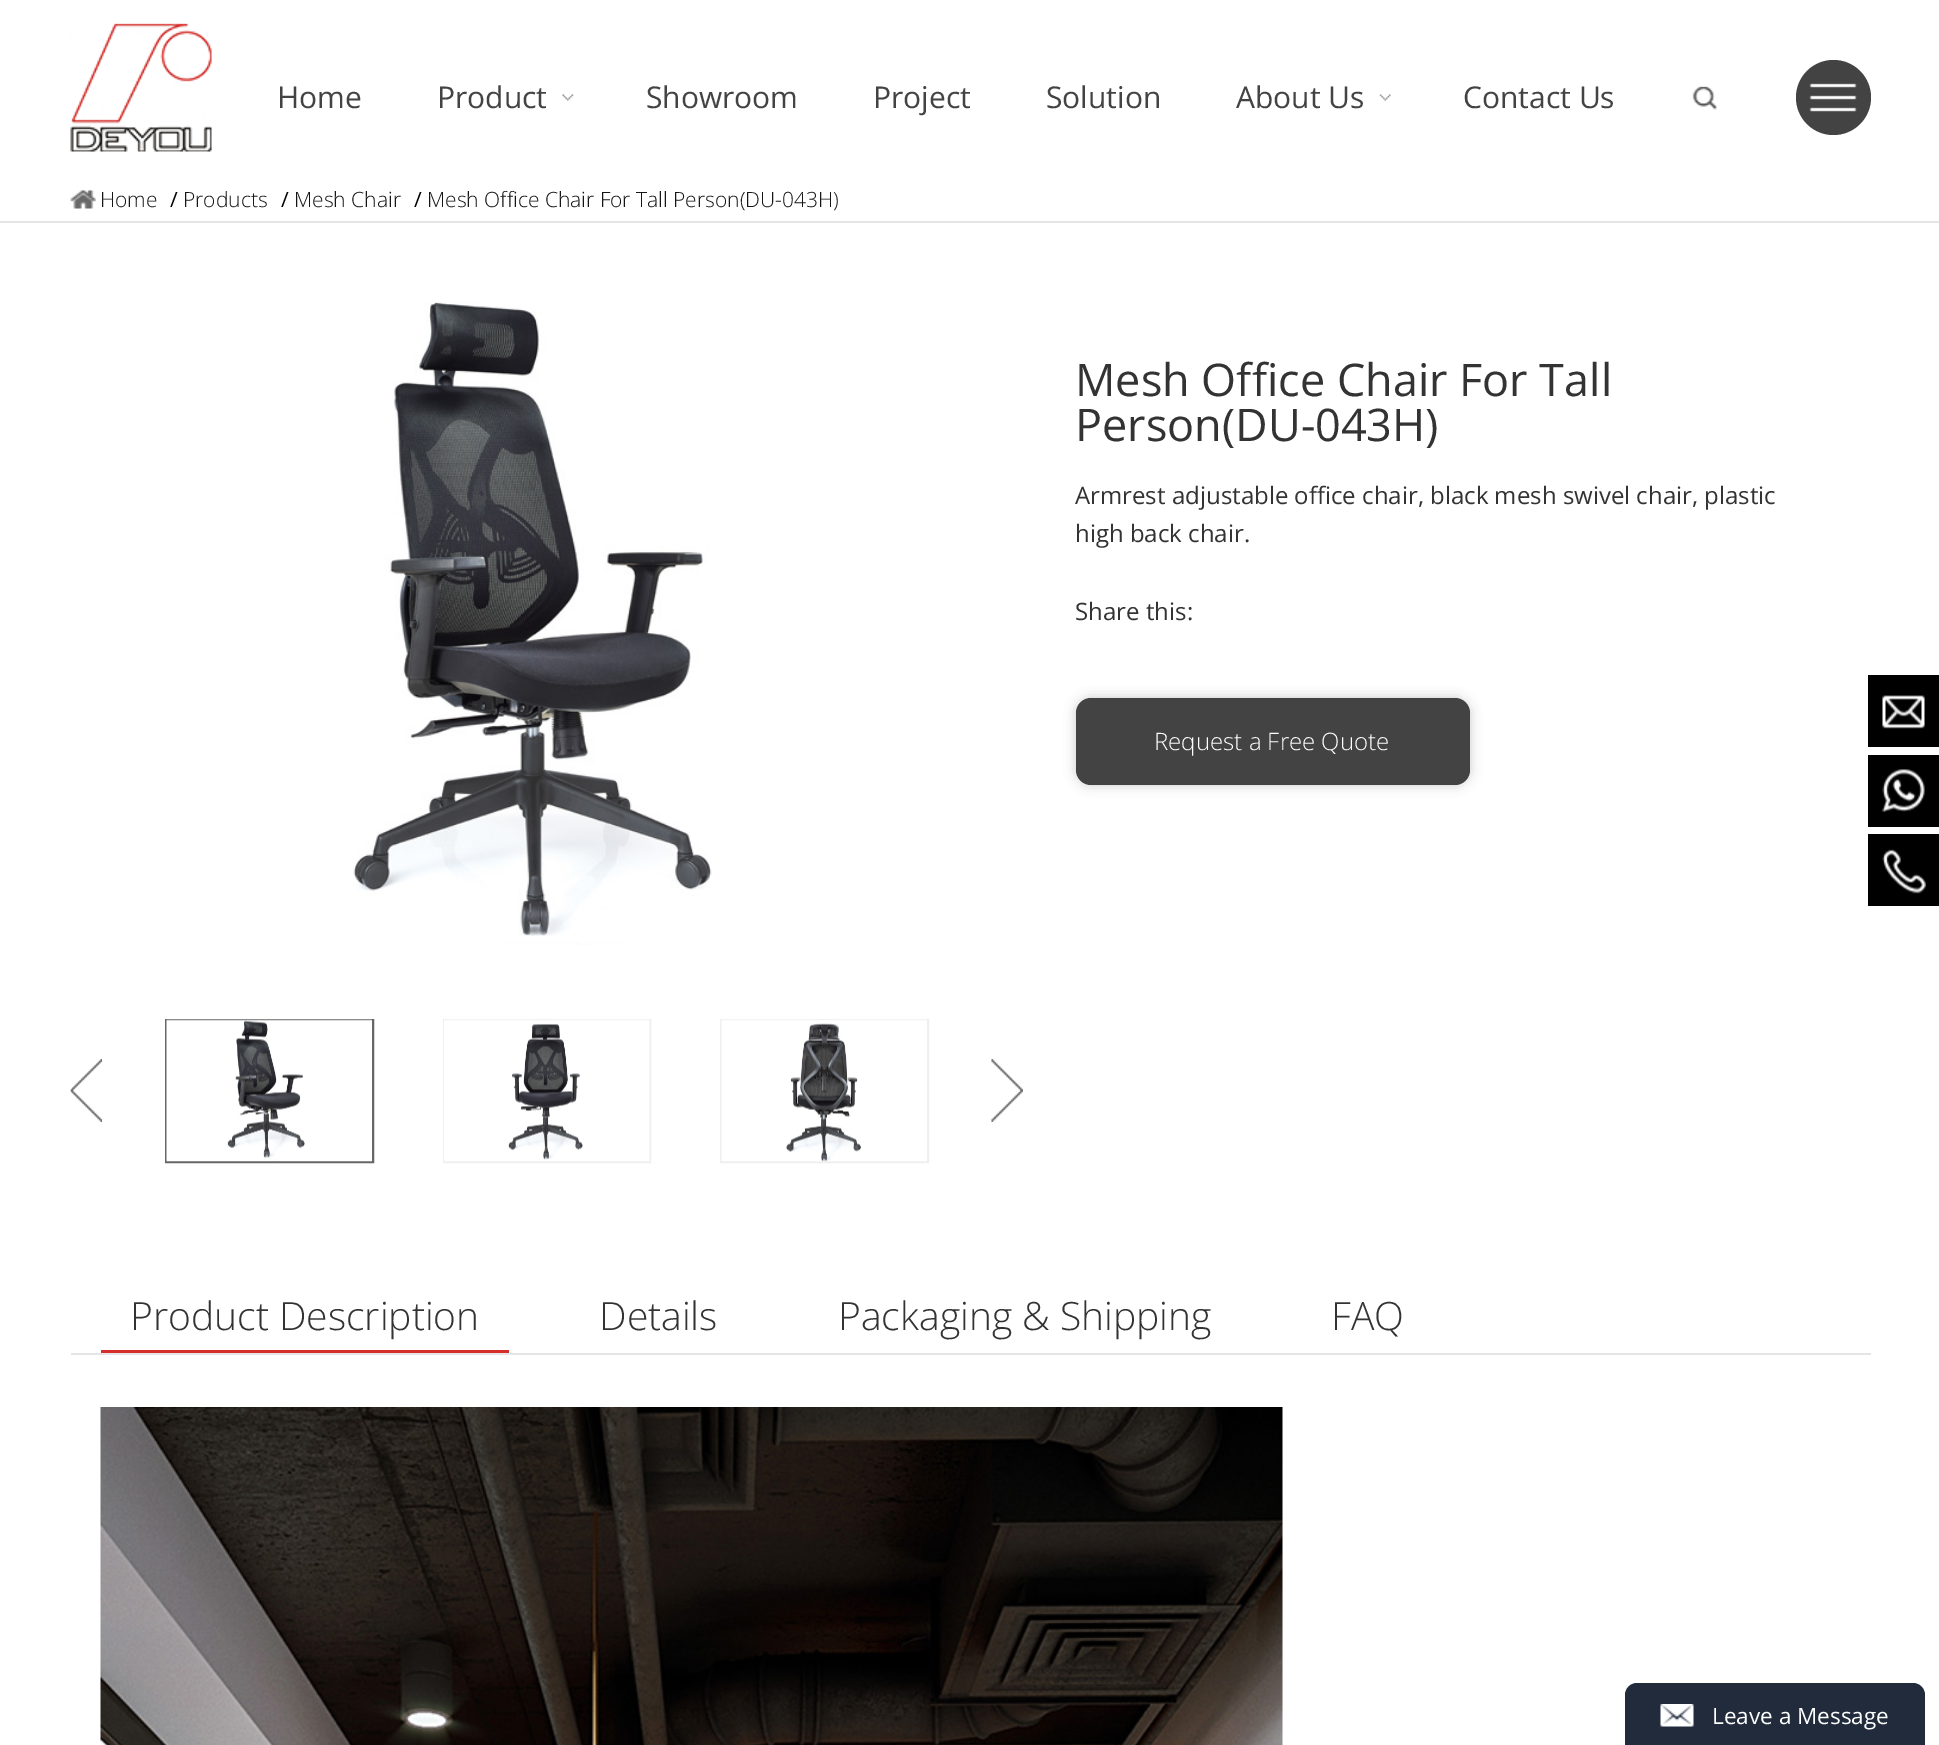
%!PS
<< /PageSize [1939 1745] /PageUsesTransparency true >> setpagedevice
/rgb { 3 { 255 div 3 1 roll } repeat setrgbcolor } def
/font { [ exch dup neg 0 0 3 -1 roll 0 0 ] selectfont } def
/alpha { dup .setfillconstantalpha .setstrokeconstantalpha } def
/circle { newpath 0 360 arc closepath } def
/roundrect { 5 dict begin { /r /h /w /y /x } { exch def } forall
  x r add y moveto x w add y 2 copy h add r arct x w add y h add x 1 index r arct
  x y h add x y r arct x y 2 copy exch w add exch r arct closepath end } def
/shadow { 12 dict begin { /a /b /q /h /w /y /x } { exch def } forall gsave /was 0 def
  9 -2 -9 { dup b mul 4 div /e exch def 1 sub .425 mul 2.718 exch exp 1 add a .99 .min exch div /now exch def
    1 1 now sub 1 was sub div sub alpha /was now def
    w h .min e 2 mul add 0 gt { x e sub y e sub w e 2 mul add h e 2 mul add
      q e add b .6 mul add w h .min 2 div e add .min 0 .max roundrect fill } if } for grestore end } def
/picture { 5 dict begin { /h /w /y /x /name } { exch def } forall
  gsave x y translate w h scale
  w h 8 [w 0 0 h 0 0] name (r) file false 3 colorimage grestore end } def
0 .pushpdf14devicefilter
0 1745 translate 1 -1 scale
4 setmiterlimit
255 255 255 rgb
0 0 1939 1745 rectfill
(img/1.rgb) 70 23 142 129 picture
(img/2.rgb) 562 94 12 7 picture
(img/3.rgb) 1379 94 12 7 picture
(img/4.rgb) 1692 86 25 24 picture
67 67 67 rgb
1833.5 97.5 37.5 circle fill
(img/5.rgb) 1809 83 48 29 picture
229 229 229 rgb
0 221 1939 2 rectfill
(img/6.rgb) 70 190 26 19 picture
(img/7.rgb) 353 302 359 643 picture
(img/8.rgb) 70 1059 32 63 picture
102 102 102 rgb
2 setlinewidth
166 1020 207 142 rectstroke
(img/9.rgb) 166 1019 206 143 picture
239 239 239 rgb
444 1020 206 142 rectstroke
(img/10.rgb) 444 1019 206 143 picture
721 1020 207 142 rectstroke
(img/11.rgb) 721 1019 206 143 picture
(img/12.rgb) 991 1059 32 63 picture
0 0 0 rgb
1076 698 394 87 15 6 0.2 shadow
67 67 67 rgb
1076 698 394 87 15 roundrect fill
0 0 0 rgb
1868 675 71 72 rectfill
(img/13.rgb) 1882 695 43 34 picture
1868 755 71 72 rectfill
(img/14.rgb) 1882 769 43 43 picture
1868 834 71 72 rectfill
(img/15.rgb) 1882 849 44 45 picture
229 229 229 rgb
71 1353 1800 2 rectfill
214 46 41 rgb
101 1350 408 3 rectfill
(img/16.rgb) 100 1407 1183 338 picture
33 43 60 rgb
1637 1683 moveto 1913 1683 lineto 1919.5 1683 1925 1688.5 1925 1695 curveto 1925 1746 lineto 1625 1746 lineto 1625 1695 lineto 1625 1688.5 1630.5 1683 1637 1683 curveto closepath fill
(img/17.rgb) 1660 1704 34 23 picture
/OpenSans-Regular 30 font
67 67 67 rgb
[
  [(Home) 277 108]
  [(Product) 437 108]
  [(Showroom) 646 108]
  [(Project) 873 108]
  [(Solution) 1046 108]
  [(About Us) 1236 108]
  [(Contact Us) 1463 108]
] { aload pop moveto show } forall
/OpenSans-Light 21 font
21 21 21 rgb
100 207 moveto (Home) show
/OpenSans-Regular 21 font
0 0 0 rgb
170 207 moveto (/) show
/OpenSans-Light 21 font
21 21 21 rgb
183 207 moveto (Products) show
/OpenSans-Regular 21 font
0 0 0 rgb
281 207 moveto (/) show
/OpenSans-Light 21 font
21 21 21 rgb
294 207 moveto (Mesh Chair) show
/OpenSans-Regular 21 font
0 0 0 rgb
414 207 moveto (/) show
/OpenSans-Light 21 font
21 21 21 rgb
427 207 moveto (Mesh Office Chair For Tall Person\(DU-043H\)) show
/OpenSans-Regular 45 font
51 51 51 rgb
1075 396 moveto (Mesh Office Chair For Tall) show
1075 441 moveto (Person\(DU-043H\)) show
/OpenSans-Regular 24 font
[
  [(Armrest adjustable office chair, black mesh swivel chair, plastic) 1075 504]
  [(high back chair.) 1075 542]
  [(Share this:) 1075 620]
] { aload pop moveto show } forall
/OpenSans-Light 24 font
255 255 255 rgb
1154 750 moveto (Request a Free Quote) show
/OpenSans-Light 39 font
51 51 51 rgb
[
  [(Product Description) 130 1330]
  [(Details) 599 1330]
  [(Packaging & Shipping) 838 1330]
  [(FAQ) 1331 1330]
] { aload pop moveto show } forall
/OpenSans-Regular 22.5 font
255 255 255 rgb
1712 1724 moveto (Leave a Message) show
.poppdf14devicefilter showpage
